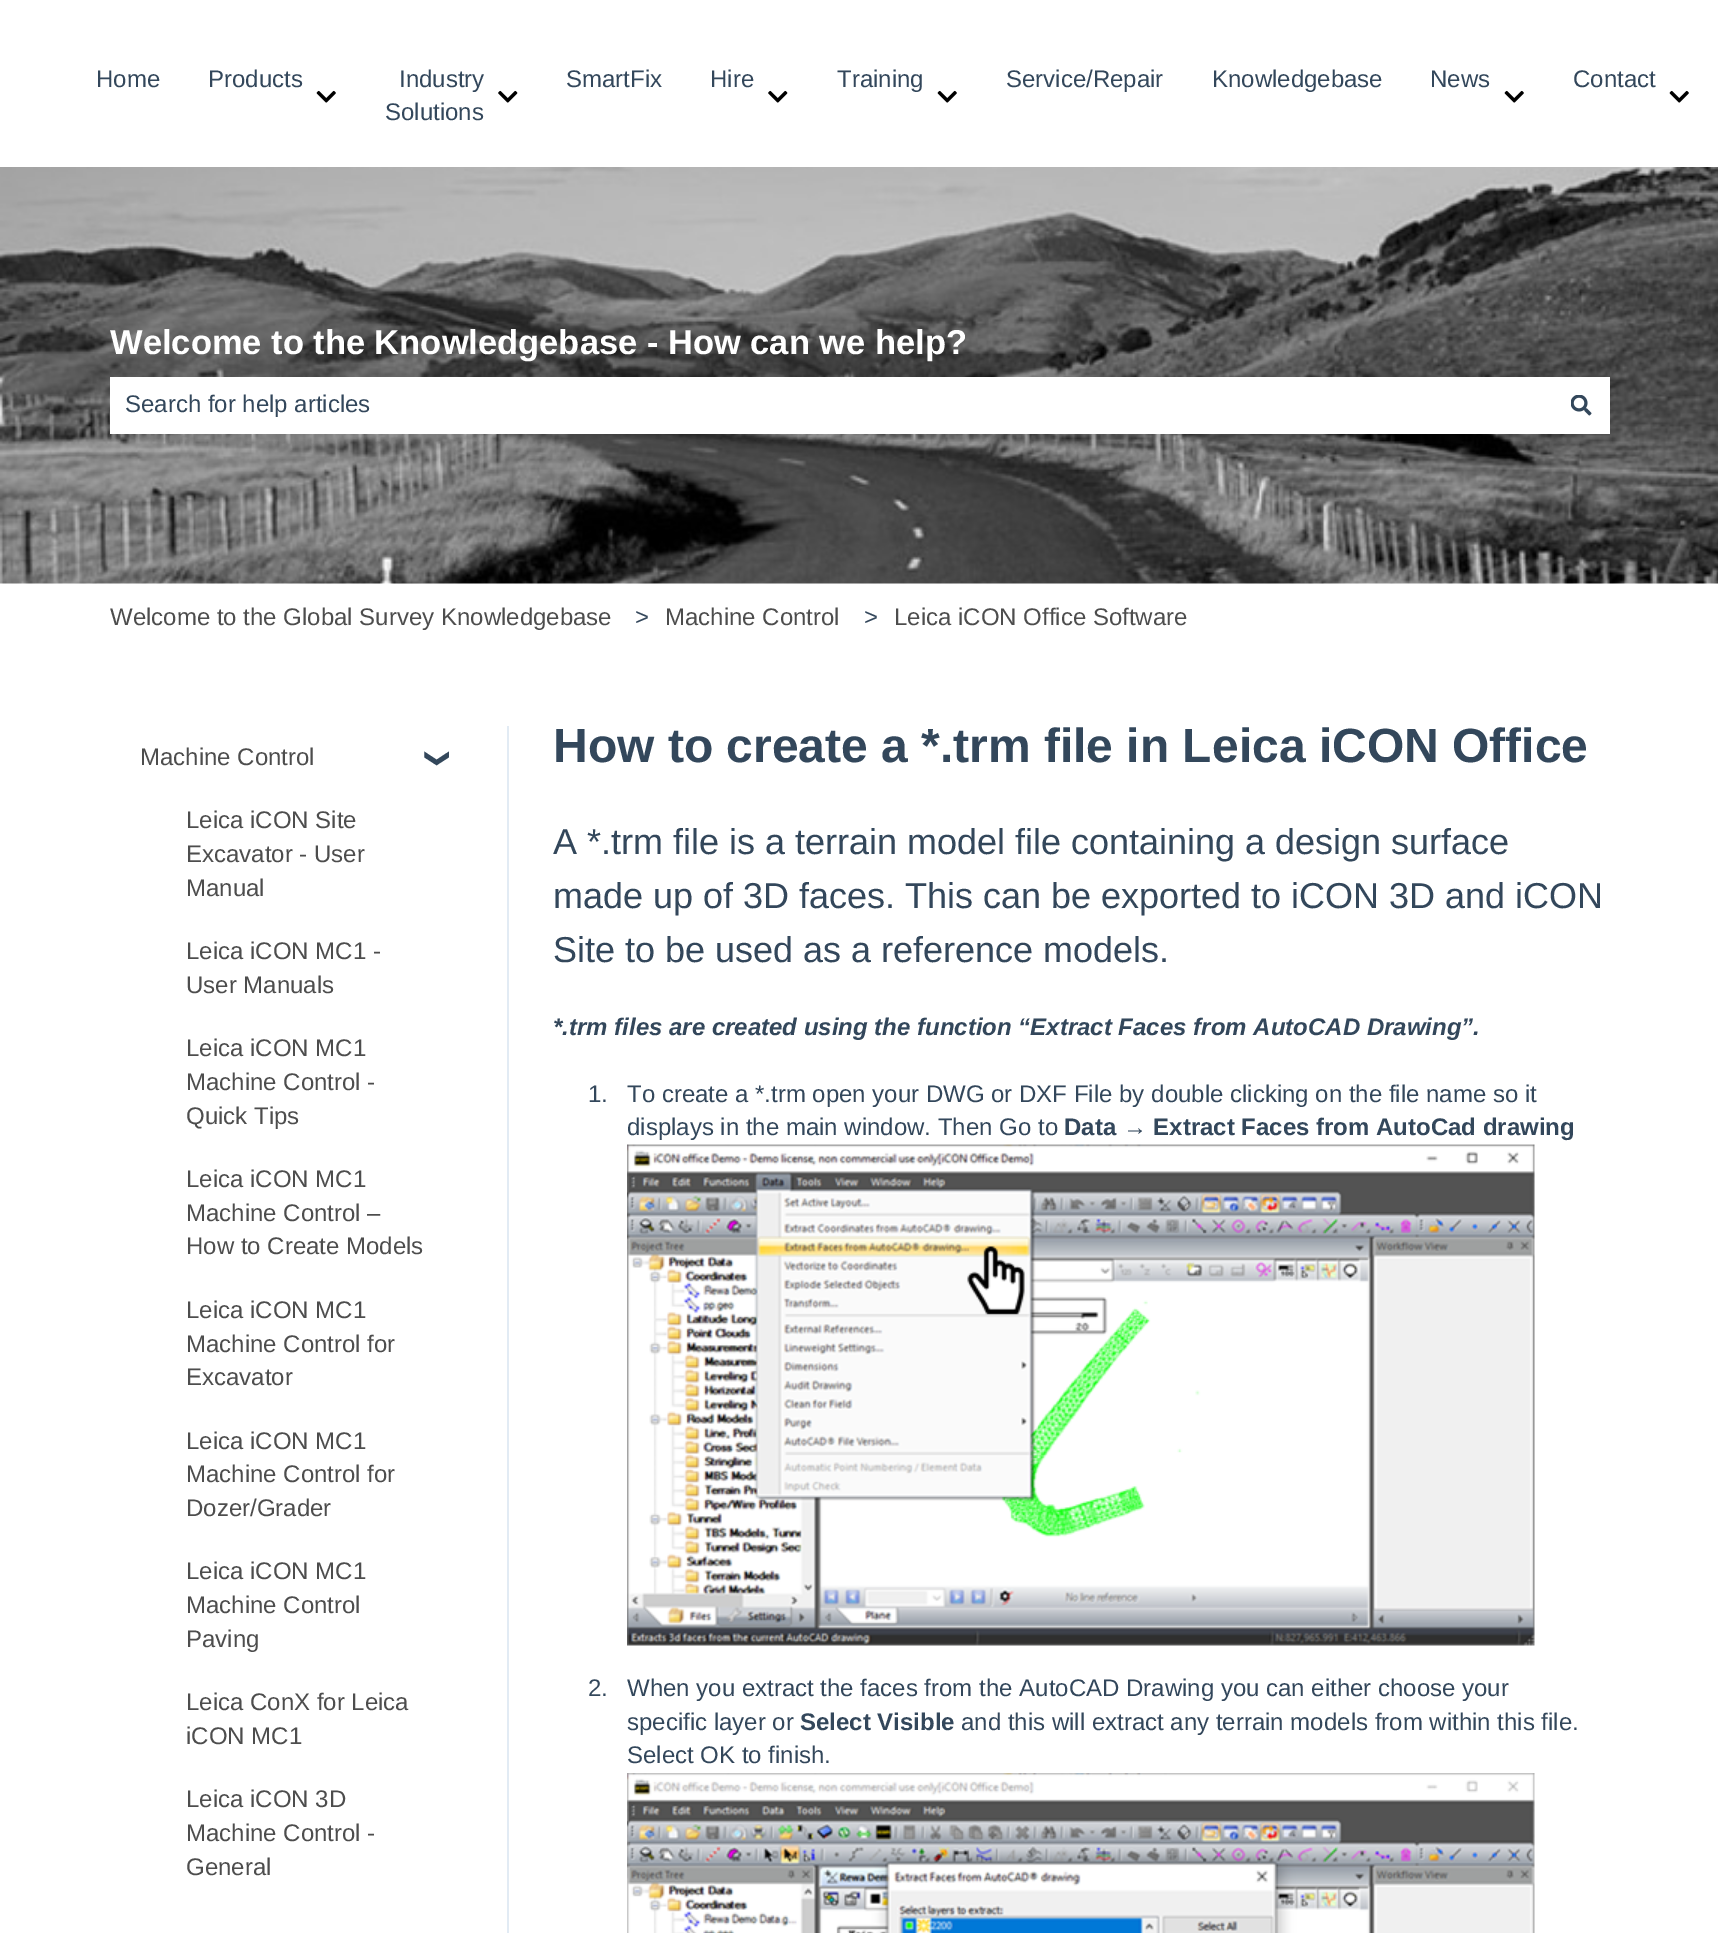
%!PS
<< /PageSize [1718 1933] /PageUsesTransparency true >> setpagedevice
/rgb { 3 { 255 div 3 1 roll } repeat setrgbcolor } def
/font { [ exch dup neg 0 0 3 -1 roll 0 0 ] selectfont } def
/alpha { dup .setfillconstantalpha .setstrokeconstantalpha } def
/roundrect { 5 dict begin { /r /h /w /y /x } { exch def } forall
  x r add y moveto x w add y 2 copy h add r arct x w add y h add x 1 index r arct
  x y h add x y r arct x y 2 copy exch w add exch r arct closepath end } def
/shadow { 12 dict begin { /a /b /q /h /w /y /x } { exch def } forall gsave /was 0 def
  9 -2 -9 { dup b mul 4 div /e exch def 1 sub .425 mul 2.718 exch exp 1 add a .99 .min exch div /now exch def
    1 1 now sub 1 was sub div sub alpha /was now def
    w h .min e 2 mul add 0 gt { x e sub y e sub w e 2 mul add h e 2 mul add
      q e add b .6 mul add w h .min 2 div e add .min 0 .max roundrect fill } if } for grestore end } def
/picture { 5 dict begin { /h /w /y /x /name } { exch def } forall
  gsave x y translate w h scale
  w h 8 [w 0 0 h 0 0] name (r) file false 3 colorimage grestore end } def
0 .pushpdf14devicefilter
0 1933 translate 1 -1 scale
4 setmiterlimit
255 255 255 rgb
0 0 1718 1933 rectfill
(img/1.rgb) 316 90 20 13 picture
(img/2.rgb) 498 90 20 13 picture
(img/2.rgb) 768 90 20 13 picture
(img/1.rgb) 937 90 20 13 picture
(img/1.rgb) 1504 90 20 13 picture
(img/1.rgb) 1669 90 20 13 picture
(img/3.rgb) 0 167 1718 417 picture
0 0 0 rgb
110 378 1443 57 0 18 0.08 shadow
255 255 255 rgb
110 377 1500 57 rectfill
(img/4.rgb) 1571 395 21 21 picture
226 235 244 rgb
507 726 2 1207 rectfill
(img/5.rgb) 627 1144 908 502 picture
(img/6.rgb) 627 1773 908 160 picture
/LiberationSans-Regular 24 font
51 71 91 rgb
[
  [(Home) 96 87]
  [(Products) 208 87]
  [(Industry) 399 87]
  [(Solutions) 385 120]
  [(SmartFix) 566 87]
  [(Hire) 710 87]
  [(Training) 837 87]
  [(Service/Repair) 1006 87]
  [(Knowledgebase) 1212 87]
  [(News) 1430 87]
  [(Contact) 1573 87]
] { aload pop moveto show } forall
/LiberationSans-Bold 34.5 font
255 255 255 rgb
110 354 moveto (Welcome to the Knowledgebase - How can we help?) show
/LiberationSans-Regular 24 font
51 71 91 rgb
125 412 moveto (Search for help articles) show
77 77 77 rgb
110 625 moveto (Welcome to the Global Survey Knowledgebase) show
51 71 91 rgb
635 625 moveto (>) show
77 77 77 rgb
665 625 moveto (Machine Control) show
51 71 91 rgb
864 625 moveto (>) show
77 77 77 rgb
894 625 moveto (Leica iCON Office Software) show
140 765 moveto (Machine Control) show
/DejaVuSans-Bold 24 font
51 71 91 rgb
gsave 430 748 translate 90 rotate 0 0 moveto (❯) show grestore
/LiberationSans-Regular 24 font
77 77 77 rgb
[
  [(Leica iCON Site) 186 828]
  [(Excavator - User) 186 862]
  [(Manual) 186 896]
  [(Leica iCON MC1 -) 186 959]
  [(User Manuals) 186 993]
  [(Leica iCON MC1) 186 1056]
  [(Machine Control -) 186 1090]
  [(Quick Tips) 186 1124]
  [(Leica iCON MC1) 186 1187]
  [(Machine Control –) 186 1221]
  [(How to Create Models) 186 1254]
  [(Leica iCON MC1) 186 1318]
  [(Machine Control for) 186 1352]
  [(Excavator) 186 1385]
  [(Leica iCON MC1) 186 1449]
  [(Machine Control for) 186 1482]
  [(Dozer/Grader) 186 1516]
  [(Leica iCON MC1) 186 1579]
  [(Machine Control) 186 1613]
  [(Paving) 186 1647]
  [(Leica ConX for Leica) 186 1710]
  [(iCON MC1) 186 1744]
  [(Leica iCON 3D) 186 1807]
  [(Machine Control -) 186 1841]
  [(General) 186 1875]
] { aload pop moveto show } forall
/LiberationSans-Bold 48 font
51 71 91 rgb
553 762 moveto (How to create a *.trm file in Leica iCON Office) show
/LiberationSans-Regular 36 font
[
  [(A *.trm file is a terrain model file containing a design surface) 553 854]
  [(made up of 3D faces. This can be exported to iCON 3D and iCON) 553 908]
  [(Site to be used as a reference models.) 553 962]
] { aload pop moveto show } forall
/LiberationSans-BoldItalic 24 font
553 1035 moveto (*.trm files are created using the function “Extract Faces from AutoCAD Drawing”.) show
/LiberationSans-Regular 24 font
[
  [(1.) 588 1102]
  [(To create a *.trm open your DWG or DXF File by double clicking on the file name so it) 627 1102]
  [(displays in the main window. Then Go to) 627 1135]
] { aload pop moveto show } forall
/LiberationSans-Bold 24 font
1064 1135 moveto (Data → Extract Faces from AutoCad drawing) show
/LiberationSans-Regular 24 font
[
  [(2.) 588 1696]
  [(When you extract the faces from the AutoCAD Drawing you can either choose your) 627 1696]
  [(specific layer or) 627 1730]
] { aload pop moveto show } forall
/LiberationSans-Bold 24 font
800 1730 moveto (Select Visible) show
/LiberationSans-Regular 24 font
961 1730 moveto (and this will extract any terrain models from within this file.) show
627 1763 moveto (Select OK to finish.) show
.poppdf14devicefilter showpage
